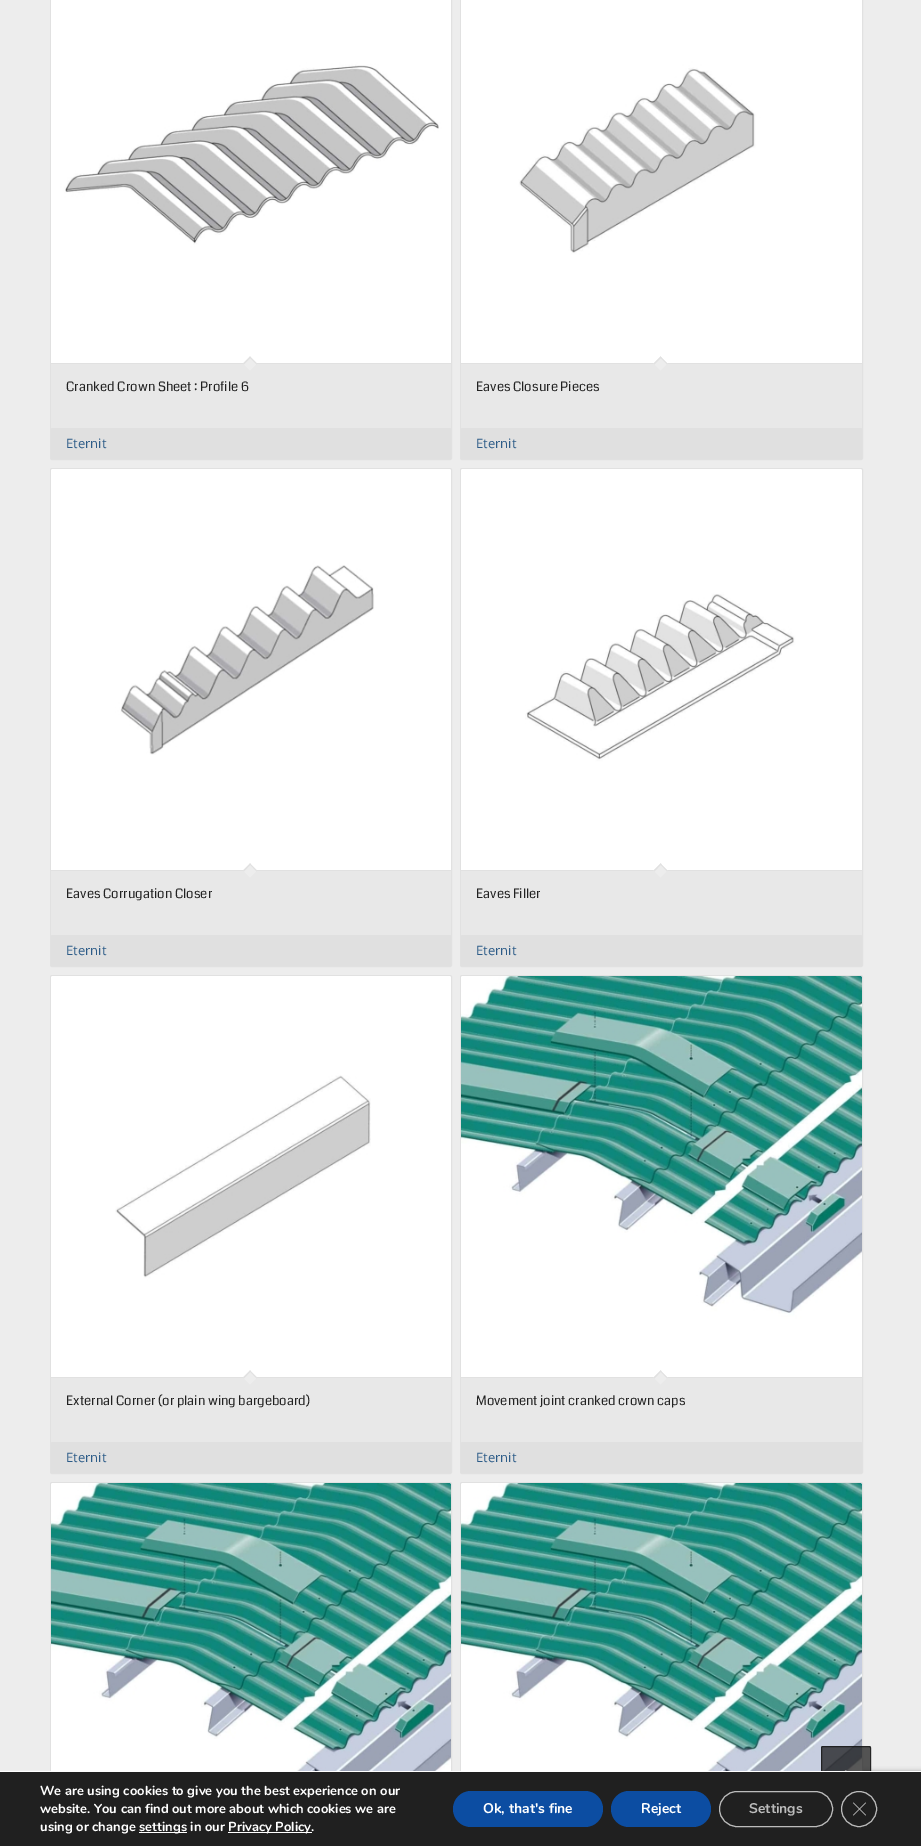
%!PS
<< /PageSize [921 1846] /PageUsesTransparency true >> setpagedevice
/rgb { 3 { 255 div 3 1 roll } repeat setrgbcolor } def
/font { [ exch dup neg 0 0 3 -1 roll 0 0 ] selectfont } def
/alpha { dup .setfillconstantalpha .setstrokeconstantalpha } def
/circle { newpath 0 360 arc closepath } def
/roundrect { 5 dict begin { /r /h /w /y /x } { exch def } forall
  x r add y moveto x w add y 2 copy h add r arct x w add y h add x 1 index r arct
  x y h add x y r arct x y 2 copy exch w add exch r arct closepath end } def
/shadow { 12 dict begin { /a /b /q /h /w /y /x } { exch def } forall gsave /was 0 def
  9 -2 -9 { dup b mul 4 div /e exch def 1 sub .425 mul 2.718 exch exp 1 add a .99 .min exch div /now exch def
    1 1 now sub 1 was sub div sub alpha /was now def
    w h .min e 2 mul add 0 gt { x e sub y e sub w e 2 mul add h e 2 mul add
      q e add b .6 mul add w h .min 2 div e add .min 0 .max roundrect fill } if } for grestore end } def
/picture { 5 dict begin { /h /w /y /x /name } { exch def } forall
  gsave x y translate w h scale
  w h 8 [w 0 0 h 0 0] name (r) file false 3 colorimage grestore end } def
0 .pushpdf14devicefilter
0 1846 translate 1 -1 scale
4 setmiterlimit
237 237 237 rgb
0 0 921 1846 rectfill
225 225 225 rgb
50.5 -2.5 401 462 1.5 roundrect stroke
(img/1.rgb) 51 0 400 363 picture
232 232 232 rgb
51 363 moveto 451 363 lineto 451 427 lineto 451 427.5 450.5 428 450 428 curveto 52 428 lineto 51.5 428 51 427.5 51 427 curveto closepath fill
225 225 225 rgb
51 363 400 1 rectfill
237 237 237 rgb
250 356.5 moveto 257 363.5 lineto 250 370.5 lineto 243 363.5 lineto closepath fill
225 225 225 rgb
250 356.5 moveto 257 363.5 lineto 256.5 364.5 lineto 249.5 357.5 lineto closepath fill
250 356.5 moveto 251 357.5 lineto 244 364.5 lineto 243 363.5 lineto closepath fill
224 224 224 rgb
51 428 400 31 1 roundrect fill
225 225 225 rgb
460.5 -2.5 402 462 1.5 roundrect stroke
(img/2.rgb) 461 0 401 363 picture
232 232 232 rgb
461 363 moveto 862 363 lineto 862 427 lineto 862 427.5 861.5 428 861 428 curveto 462 428 lineto 461.5 428 461 427.5 461 427 curveto closepath fill
225 225 225 rgb
461 363 401 1 rectfill
237 237 237 rgb
660.5 356.5 moveto 667.5 363.5 lineto 660.5 370.5 lineto 653.5 363.5 lineto closepath fill
225 225 225 rgb
660.5 356.5 moveto 667.5 363.5 lineto 667 364.5 lineto 660 357.5 lineto closepath fill
660.5 356.5 moveto 661.5 357.5 lineto 654.5 364.5 lineto 653.5 363.5 lineto closepath fill
224 224 224 rgb
461 428 401 31 1 roundrect fill
225 225 225 rgb
50.5 468.5 401 498 1.5 roundrect stroke
(img/3.rgb) 51 469 400 401 picture
232 232 232 rgb
51 870 moveto 451 870 lineto 451 934 lineto 451 934.5 450.5 935 450 935 curveto 52 935 lineto 51.5 935 51 934.5 51 934 curveto closepath fill
225 225 225 rgb
51 870 400 1 rectfill
237 237 237 rgb
250 863.5 moveto 257 870.5 lineto 250 877.5 lineto 243 870.5 lineto closepath fill
225 225 225 rgb
250 863.5 moveto 257 870.5 lineto 256.5 871.5 lineto 249.5 864 lineto closepath fill
250 863.5 moveto 251 864 lineto 244 871.5 lineto 243 870.5 lineto closepath fill
224 224 224 rgb
51 935 400 31 1 roundrect fill
225 225 225 rgb
460.5 468.5 402 498 1.5 roundrect stroke
(img/4.rgb) 461 469 401 401 picture
232 232 232 rgb
461 870 moveto 862 870 lineto 862 934 lineto 862 934.5 861.5 935 861 935 curveto 462 935 lineto 461.5 935 461 934.5 461 934 curveto closepath fill
225 225 225 rgb
461 870 401 1 rectfill
237 237 237 rgb
660.5 863.5 moveto 667.5 870.5 lineto 660.5 877.5 lineto 653.5 870.5 lineto closepath fill
225 225 225 rgb
660.5 863.5 moveto 667.5 870.5 lineto 667 871.5 lineto 660 864 lineto closepath fill
660.5 863.5 moveto 661.5 864 lineto 654.5 871.5 lineto 653.5 870.5 lineto closepath fill
224 224 224 rgb
461 935 401 31 1 roundrect fill
225 225 225 rgb
50.5 975.5 401 498 1.5 roundrect stroke
(img/5.rgb) 51 976 400 401 picture
232 232 232 rgb
51 1377 moveto 451 1377 lineto 451 1441 lineto 451 1441.5 450.5 1442 450 1442 curveto 52 1442 lineto 51.5 1442 51 1441.5 51 1441 curveto closepath fill
225 225 225 rgb
51 1377 400 1 rectfill
237 237 237 rgb
250 1370.5 moveto 257 1377.5 lineto 250 1384.5 lineto 243 1377.5 lineto closepath fill
225 225 225 rgb
250 1370.5 moveto 257 1377.5 lineto 256.5 1378.5 lineto 249.5 1371 lineto closepath fill
250 1370.5 moveto 251 1371 lineto 244 1378.5 lineto 243 1377.5 lineto closepath fill
224 224 224 rgb
51 1442 400 31 1 roundrect fill
225 225 225 rgb
460.5 975.5 402 498 1.5 roundrect stroke
(img/6.rgb) 461 976 401 401 picture
232 232 232 rgb
461 1377 moveto 862 1377 lineto 862 1441 lineto 862 1441.5 861.5 1442 861 1442 curveto 462 1442 lineto 461.5 1442 461 1441.5 461 1441 curveto closepath fill
225 225 225 rgb
461 1377 401 1 rectfill
237 237 237 rgb
660.5 1370.5 moveto 667.5 1377.5 lineto 660.5 1384.5 lineto 653.5 1377.5 lineto closepath fill
225 225 225 rgb
660.5 1370.5 moveto 667.5 1377.5 lineto 667 1378.5 lineto 660 1371 lineto closepath fill
660.5 1370.5 moveto 661.5 1371 lineto 654.5 1378.5 lineto 653.5 1377.5 lineto closepath fill
224 224 224 rgb
461 1442 401 31 1 roundrect fill
225 225 225 rgb
50.5 1482.5 401 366 1.5 roundrect stroke
(img/7.rgb) 51 1483 400 288 picture
128 128 128 rgb
851 1772 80 60 2 2.5 1 shadow
237 237 237 rgb
460.5 1482.5 402 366 1.5 roundrect gsave fill grestore
225 225 225 rgb
stroke
(img/8.rgb) 461 1483 401 288 picture
0.7 alpha
17 17 17 rgb
821 1746 50 50 2 roundrect fill
821.5 1746.5 49 49 1.5 roundrect stroke
1 alpha
(img/9.rgb) 844 1770 3 1 picture
[
  [0 1772 921 74 32 32 32]
  [0 1771 921 1 255 255 255]
  [139 1832 48 1 255 255 255]
  [228 1832 84 1 255 255 255]
] { aload pop rgb rectfill } forall
12 77 162 rgb
453 1791 150 36 18 roundrect fill
611 1791 100 36 18 roundrect fill
188 188 188 rgb
719.5 1791.5 113 35 17.5 roundrect stroke
859 1809 17.5 circle stroke
865.5 1802.5 moveto 866 1803 lineto 853.5 1815.5 lineto 853 1815 lineto closepath fill
853 1803 moveto 853.5 1802.5 lineto 866 1815 lineto 865.5 1815.5 lineto closepath fill
/Coda-Regular 13 font
34 34 34 rgb
66 391 moveto (Cranked Crown Sheet : Profile 6) show
/OpenSans-Regular 13 font
45 92 136 rgb
66 448 moveto (Eternit) show
/Coda-Regular 13 font
34 34 34 rgb
476 391 moveto (Eaves Closure Pieces) show
/OpenSans-Regular 13 font
45 92 136 rgb
476 448 moveto (Eternit) show
/Coda-Regular 13 font
34 34 34 rgb
66 898 moveto (Eaves Corrugation Closer) show
/OpenSans-Regular 13 font
45 92 136 rgb
66 955 moveto (Eternit) show
/Coda-Regular 13 font
34 34 34 rgb
476 898 moveto (Eaves Filler) show
/OpenSans-Regular 13 font
45 92 136 rgb
476 955 moveto (Eternit) show
/Coda-Regular 13 font
34 34 34 rgb
66 1405 moveto (External Corner \(or plain wing bargeboard\)) show
/OpenSans-Regular 13 font
45 92 136 rgb
66 1462 moveto (Eternit) show
/Coda-Regular 13 font
34 34 34 rgb
476 1405 moveto (Movement joint cranked crown caps) show
/OpenSans-Regular 13 font
45 92 136 rgb
476 1462 moveto (Eternit) show
/Nunito-Bold 13 font
255 255 255 rgb
[
  [(We are using cookies to give you the best experience on our) 40 1795]
  [(website. You can find out more about which cookies we are) 40 1813]
  [(using or change) 40 1831]
  [(settings in our) 139 1831]
  [(Privacy Policy.) 228 1831]
] { aload pop moveto show } forall
/Nunito-Bold 14 font
483 1813 moveto (Ok, that's fine) show
641 1813 moveto (Reject) show
188 188 188 rgb
749 1813 moveto (Settings) show
.poppdf14devicefilter showpage
